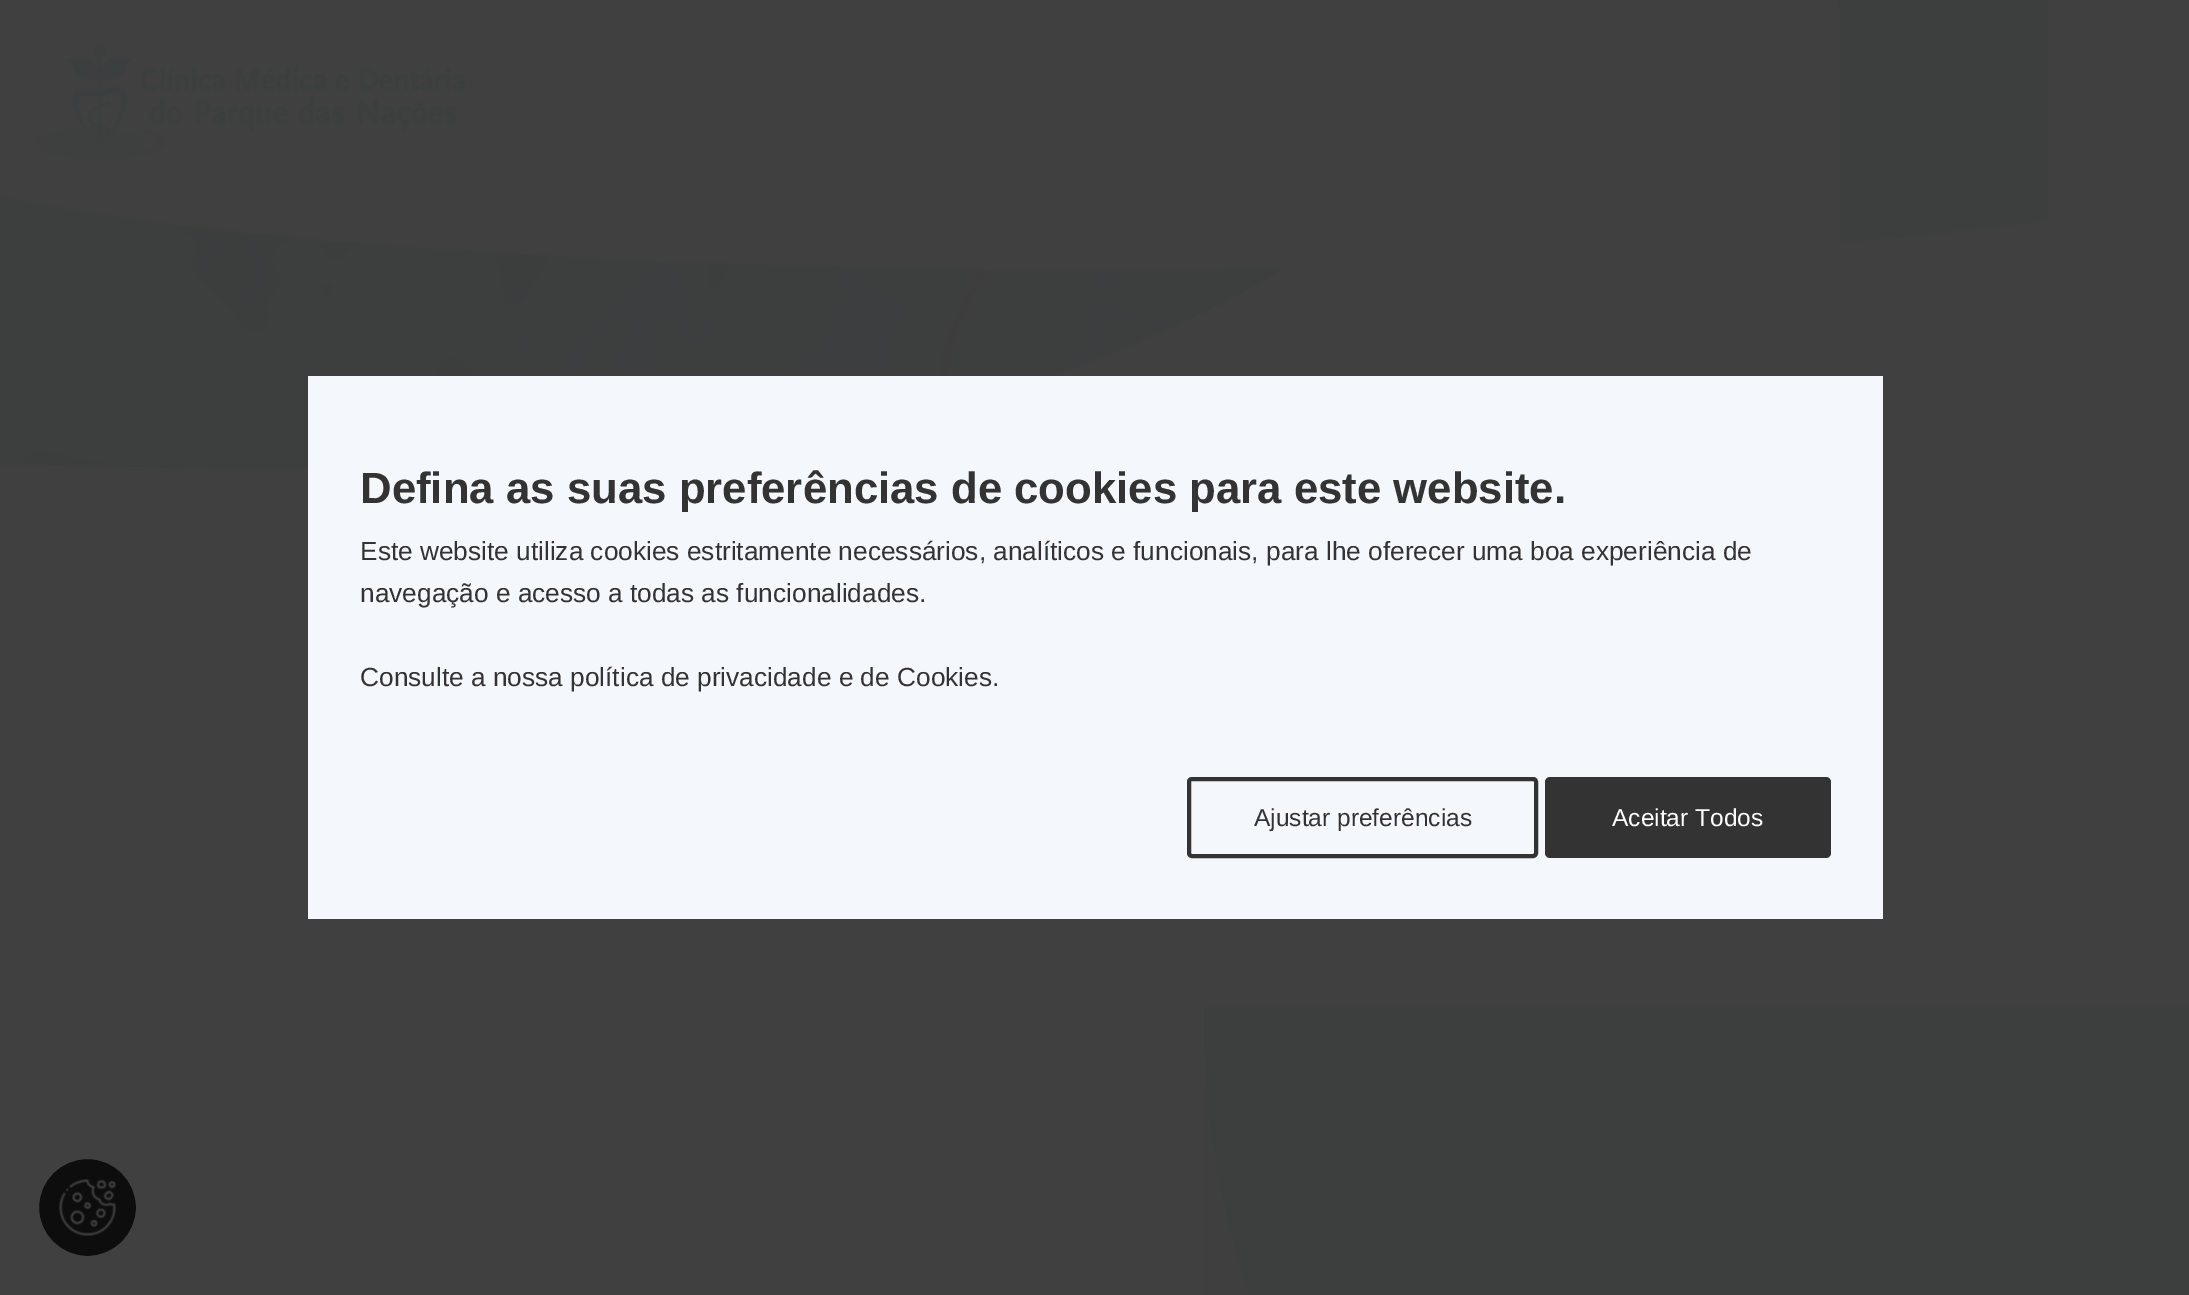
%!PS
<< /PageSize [2189 1295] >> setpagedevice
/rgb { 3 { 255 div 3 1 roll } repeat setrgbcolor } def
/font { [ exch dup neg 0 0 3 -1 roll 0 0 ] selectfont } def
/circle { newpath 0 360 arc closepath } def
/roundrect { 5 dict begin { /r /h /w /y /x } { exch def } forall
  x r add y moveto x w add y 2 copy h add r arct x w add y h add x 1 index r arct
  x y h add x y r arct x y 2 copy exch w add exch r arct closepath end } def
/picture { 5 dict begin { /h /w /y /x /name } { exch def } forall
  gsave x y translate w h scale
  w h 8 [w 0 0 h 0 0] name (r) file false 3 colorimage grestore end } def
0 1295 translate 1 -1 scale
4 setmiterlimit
64 64 64 rgb
0 0 2189 1295 rectfill
(img/1.rgb) 36 43 430 118 picture
(img/2.rgb) 1839 0 209 245 picture
(img/3.rgb) 0 196 2048 276 picture
244 247 252 rgb
308 376 1575 543 rectfill
51 51 51 rgb
4 setlinewidth
1189 779 347 77 3 roundrect stroke
1545 777 286 81 5 roundrect fill
13 13 13 rgb
87.5 1207.5 50.5 circle gsave fill grestore
64 64 64 rgb
stroke
(img/4.rgb) 59 1179 57 57 picture
(img/5.rgb) 1204 1006 985 289 picture
/LiberationSans-Bold 43.75 font
51 51 51 rgb
360 503 moveto (Defina as suas preferências de cookies para este website.) show
/LiberationSans-Regular 26.25 font
[
  [(Este website utiliza cookies estritamente necessários, analíticos e funcionais, para lhe oferecer uma boa experiência de) 360 560]
  [(navegação e acesso a todas as funcionalidades.) 360 602]
  [(Consulte a nossa política de privacidade e de Cookies.) 360 686]
] { aload pop moveto show } forall
/LiberationSans-Regular 24.5 font
1254 826 moveto (Ajustar preferências) show
255 255 255 rgb
1612 826 moveto (Aceitar Todos) show
showpage
